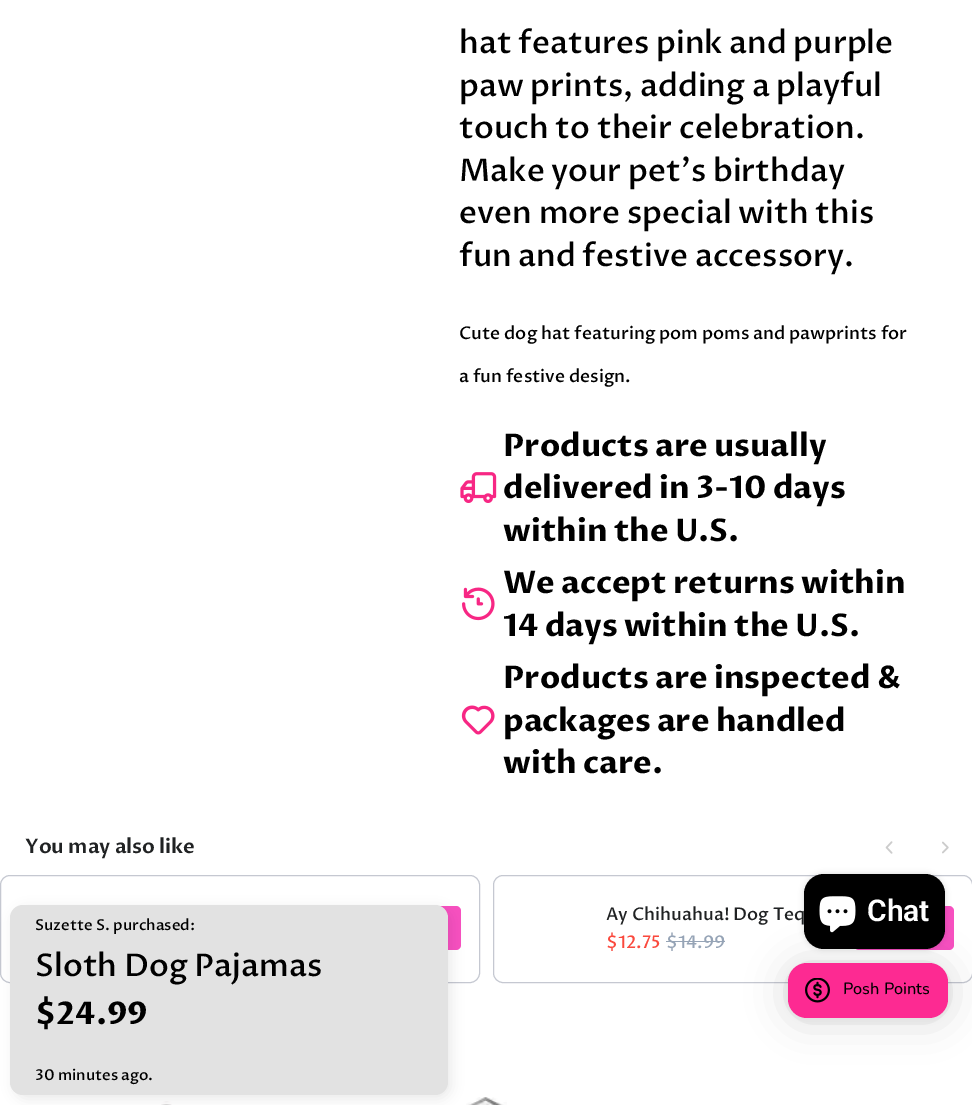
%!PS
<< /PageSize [972 1105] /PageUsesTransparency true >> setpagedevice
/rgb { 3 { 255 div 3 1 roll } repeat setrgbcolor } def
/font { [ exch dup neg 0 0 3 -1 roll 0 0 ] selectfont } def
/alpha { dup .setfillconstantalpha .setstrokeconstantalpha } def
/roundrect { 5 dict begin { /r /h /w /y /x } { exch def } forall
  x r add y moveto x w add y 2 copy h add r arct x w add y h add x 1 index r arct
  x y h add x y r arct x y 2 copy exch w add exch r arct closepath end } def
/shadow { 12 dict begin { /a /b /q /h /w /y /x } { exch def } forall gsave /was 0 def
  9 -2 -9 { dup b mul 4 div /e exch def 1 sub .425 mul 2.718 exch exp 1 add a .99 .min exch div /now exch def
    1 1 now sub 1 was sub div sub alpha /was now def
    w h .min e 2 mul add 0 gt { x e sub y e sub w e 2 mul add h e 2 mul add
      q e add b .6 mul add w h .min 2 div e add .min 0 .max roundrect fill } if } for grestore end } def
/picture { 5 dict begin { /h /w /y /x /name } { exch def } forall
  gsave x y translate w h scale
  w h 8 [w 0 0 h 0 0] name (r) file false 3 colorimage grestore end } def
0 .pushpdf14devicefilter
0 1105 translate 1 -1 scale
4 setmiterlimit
255 255 255 rgb
0 0 972 1105 rectfill
(img/1.rgb) 460 472 37 31 picture
(img/2.rgb) 462 587 33 34 picture
(img/3.rgb) 461 705 34 30 picture
(img/4.rgb) 885 841 8 13 picture
(img/5.rgb) 942 841 7 13 picture
197 200 209 rgb
0.5 875.5 479 107 9.5 roundrect stroke
247 80 192 rgb
361 906 100 44 5 roundrect fill
197 200 209 rgb
493.5 875.5 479 107 9.5 roundrect stroke
150 164 182 rgb
666 941 59 1 rectfill
247 80 192 rgb
854 906 100 44 5 roundrect fill
(img/6.rgb) 161 1101 11 4 picture
(img/7.rgb) 466 1097 41 8 picture
0 0 0 rgb
14 909 437 190 13 6 0.08 shadow
226 226 226 rgb
10 905 438 190 13 roundrect fill
0 0 0 rgb
804 874 141 75 20 3 0.15 shadow
788 965 160 55 19 20 0.16 shadow
788 964 160 55 19 4 0.06 shadow
253 42 146 rgb
788 963 160 55 19 roundrect fill
(img/9.rgb) 805 978 25 25 picture
/ProzaLibre-Medium 31.25 font
0 0 0 rgb
[
  [(hat features pink and purple) 459 53]
  [(paw prints, adding a playful) 459 96]
  [(touch to their celebration.) 459 138]
  [(Make your pet's birthday) 459 181]
  [(even more special with this) 459 223]
  [(fun and festive accessory.) 459 266]
] { aload pop moveto show } forall
/ProzaLibre-Medium 17.5 font
459 339 moveto (Cute dog hat featuring pom poms and pawprints for) show
459 382 moveto (a fun festive design.) show
/ProzaLibre-Bold 31.25 font
[
  [(Products are usually) 503 456]
  [(delivered in 3-10 days) 503 498]
  [(within the U.S.) 503 541]
  [(We accept returns within) 503 593]
  [(14 days within the U.S.) 503 636]
  [(Products are inspected &) 503 688]
  [(packages are handled) 503 731]
  [(with care.) 503 773]
] { aload pop moveto show } forall
/ProzaLibre-SemiBold 20 font
32 34 35 rgb
25 853 moveto (You may also like) show
/ProzaLibre-Medium 17.5 font
606 920 moveto (Ay Chihuahua! Dog Teq) show
250 73 61 rgb
606 948 moveto ($12.75) show
150 164 182 rgb
666 948 moveto ($14.99) show
/ProzaLibre-Medium 15 font
0 0 0 rgb
35 930 moveto (Suzette S. purchased:) show
/ProzaLibre-Medium 31.25 font
35 976 moveto (Sloth Dog Pajamas) show
/ProzaLibre-Bold 31.25 font
35 1024 moveto ($24.99) show
/ProzaLibre-Medium 15 font
35 1080 moveto (30 minutes ago.) show
804 874 141 75 20 roundrect fill
(img/8.rgb) 819 896 37 37 picture
/Roboto-SemiBold 30 font
255 255 255 rgb
867 921 moveto (Chat) show
/Nunito-Medium 16.25 font
0 0 0 rgb
843 994 moveto (Posh Points) show
.poppdf14devicefilter showpage
